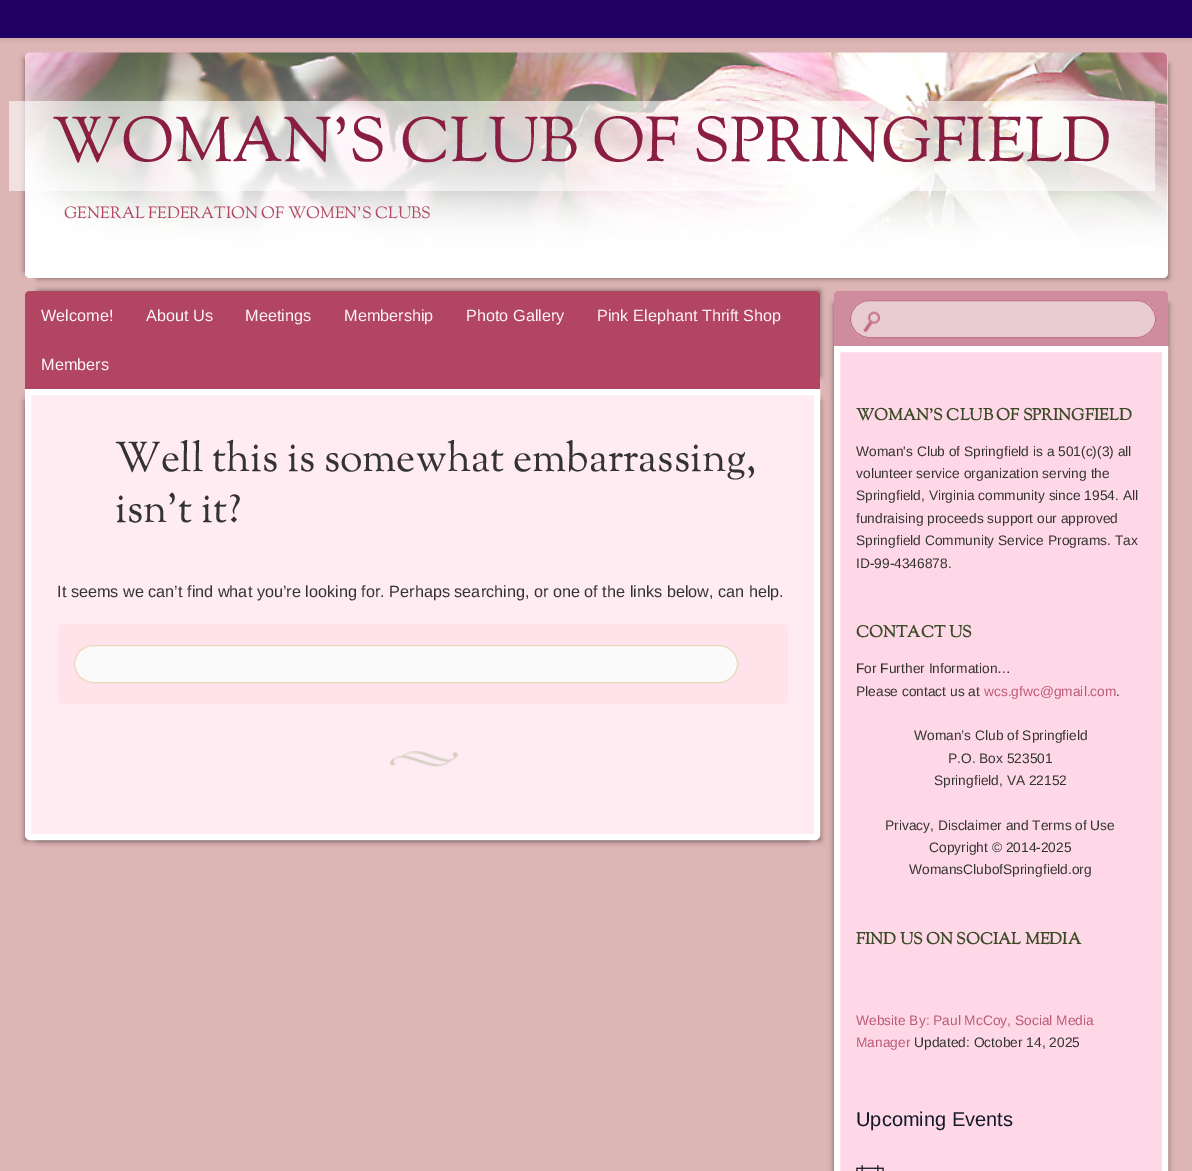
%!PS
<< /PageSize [1192 1171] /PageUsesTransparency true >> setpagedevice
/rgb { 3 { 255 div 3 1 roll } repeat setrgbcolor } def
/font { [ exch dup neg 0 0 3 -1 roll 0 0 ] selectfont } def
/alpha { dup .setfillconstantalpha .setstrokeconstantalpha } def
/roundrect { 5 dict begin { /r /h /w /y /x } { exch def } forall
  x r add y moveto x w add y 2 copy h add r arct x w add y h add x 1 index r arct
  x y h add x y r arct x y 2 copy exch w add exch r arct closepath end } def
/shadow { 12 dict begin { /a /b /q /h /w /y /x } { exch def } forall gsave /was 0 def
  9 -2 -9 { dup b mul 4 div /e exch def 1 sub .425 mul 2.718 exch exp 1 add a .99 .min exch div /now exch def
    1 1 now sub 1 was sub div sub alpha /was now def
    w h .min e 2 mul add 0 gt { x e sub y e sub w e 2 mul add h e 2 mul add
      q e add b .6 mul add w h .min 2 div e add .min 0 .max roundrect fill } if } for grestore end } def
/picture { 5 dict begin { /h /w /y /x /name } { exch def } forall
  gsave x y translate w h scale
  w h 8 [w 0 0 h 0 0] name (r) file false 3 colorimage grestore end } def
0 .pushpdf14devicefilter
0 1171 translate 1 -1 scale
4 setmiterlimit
221 181 181 rgb
0 0 1192 1171 rectfill
0 0 0 rgb
0 4 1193 37 0 2.5 0.05 shadow
32 0 99 rgb
0 0 1192 38 rectfill
0 0 0 rgb
25 59 1130 212 0 3 0.5 shadow
38 65 1130 213 0 3 0.5 shadow
255 255 255 rgb
25 53 1143 225 5 roundrect fill
(img/1.rgb) 25 52 1143 223 picture
0.6 alpha
9 101 1146 90 rectfill
1 alpha
0 0 0 rgb
38 291 782 85 0 3 0.5 shadow
177 69 98 rgb
30 291 moveto 815 291 lineto 818 291 820 293 820 296 curveto 820 389 lineto 25 389 lineto 25 296 lineto 25 293 27 291 30 291 curveto closepath fill
0 0 0 rgb
25 401 783 439 0 3 0.5 shadow
38 401 782 439 0 3 0.5 shadow
255 235 242 rgb
28 392 moveto 817 392 lineto 817 835 lineto 817 836 816 837 815 837 curveto 30 837 lineto 29 837 28 836 28 835 curveto closepath gsave fill grestore
255 255 255 rgb
6 setlinewidth
stroke
(img/2.rgb) 390 751 68 16 picture
255 226 234 rgb
58 624 730 80 5 roundrect fill
250 250 250 rgb
74.5 645.5 663 37 18.5 roundrect gsave fill grestore
231 217 185 rgb
1 setlinewidth
stroke
0 0 0 rgb
834 304 321 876 0 3 0.5 shadow
846 304 322 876 0 3 0.5 shadow
207 140 158 rgb
839 291 moveto 1163 291 lineto 1166 291 1168 293 1168 296 curveto 1168 346 lineto 834 346 lineto 834 296 lineto 834 293 836 291 839 291 curveto closepath fill
233 203 211 rgb
850 300 306 38 19 roundrect fill
(img/3.rgb) 863 311 17 22 picture
192 117 139 rgb
850.5 300.5 305 37 18.5 roundrect stroke
255 216 232 rgb
837 349 moveto 1165 349 lineto 1165 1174 lineto 837 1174 lineto closepath gsave fill grestore
255 255 255 rgb
6 setlinewidth
stroke
(img/4.rgb) 856 1165 28 6 picture
/SortsMillGoudy-Regular 62.5 font
137 30 66 rgb
52 161 moveto (WOMAN'S CLUB OF SPRINGFIELD) show
/SortsMillGoudy-Regular 16.25 font
177 69 98 rgb
64 218 moveto (GENERAL FEDERATION OF WOMEN'S CLUBS) show
/LiberationSans-Regular 16.25 font
255 244 249 rgb
[
  [(Welcome!) 41 321]
  [(About Us) 146 321]
  [(Meetings) 245 321]
  [(Membership) 344 321]
  [(Photo Gallery) 466 321]
  [(Pink Elephant Thrift Shop) 597 321]
  [(Members) 41 370]
] { aload pop moveto show } forall
/SortsMillGoudy-Regular 41.25 font
51 51 51 rgb
115 471 moveto (Well this is somewhat embarrassing,) show
115 522 moveto (isn’t it?) show
/LiberationSans-Regular 16.25 font
57 597 moveto (It seems we can’t find what you’re looking for. Perhaps searching, or one of the links below, can help.) show
/SortsMillGoudy-Bold 16.25 font
59 74 38 rgb
856 420 moveto (WOMAN’S CLUB OF SPRINGFIELD) show
/LiberationSans-Regular 13.75 font
51 51 51 rgb
[
  [(Woman's Club of Springfield is a 501\(c\)\(3\) all) 856 456]
  [(volunteer service organization serving the) 856 478]
  [(Springfield, Virginia community since 1954. All) 856 500]
  [(fundraising proceeds support our approved) 856 523]
  [(Springfield Community Service Programs. Tax) 856 545]
  [(ID-99-4346878.) 856 568]
] { aload pop moveto show } forall
/SortsMillGoudy-Bold 16.25 font
59 74 38 rgb
856 637 moveto (CONTACT US) show
/LiberationSans-Regular 13.75 font
51 51 51 rgb
856 673 moveto (For Further Information…) show
856 696 moveto (Please contact us at) show
187 89 116 rgb
984 696 moveto (wcs.gfwc@gmail.com) show
51 51 51 rgb
[
  [(.) 1116 696]
  [(Woman’s Club of Springfield) 914 740]
  [(P.O. Box 523501) 948 763]
  [(Springfield, VA 22152) 934 785]
  [(Privacy, Disclaimer and Terms of Use) 885 830]
  [(Copyright © 2014-2025) 929 852]
  [(WomansClubofSpringfield.org) 909 874]
] { aload pop moveto show } forall
/SortsMillGoudy-Bold 16.25 font
59 74 38 rgb
856 944 moveto (FIND US ON SOCIAL MEDIA) show
/LiberationSans-Regular 13.75 font
187 89 116 rgb
856 1025 moveto (Website By: Paul McCoy, Social Media) show
856 1047 moveto (Manager) show
51 51 51 rgb
914 1047 moveto (Updated: October 14, 2025) show
/LiberationSans-Regular 20 font
20 24 39 rgb
856 1126 moveto (Upcoming Events) show
.poppdf14devicefilter showpage
